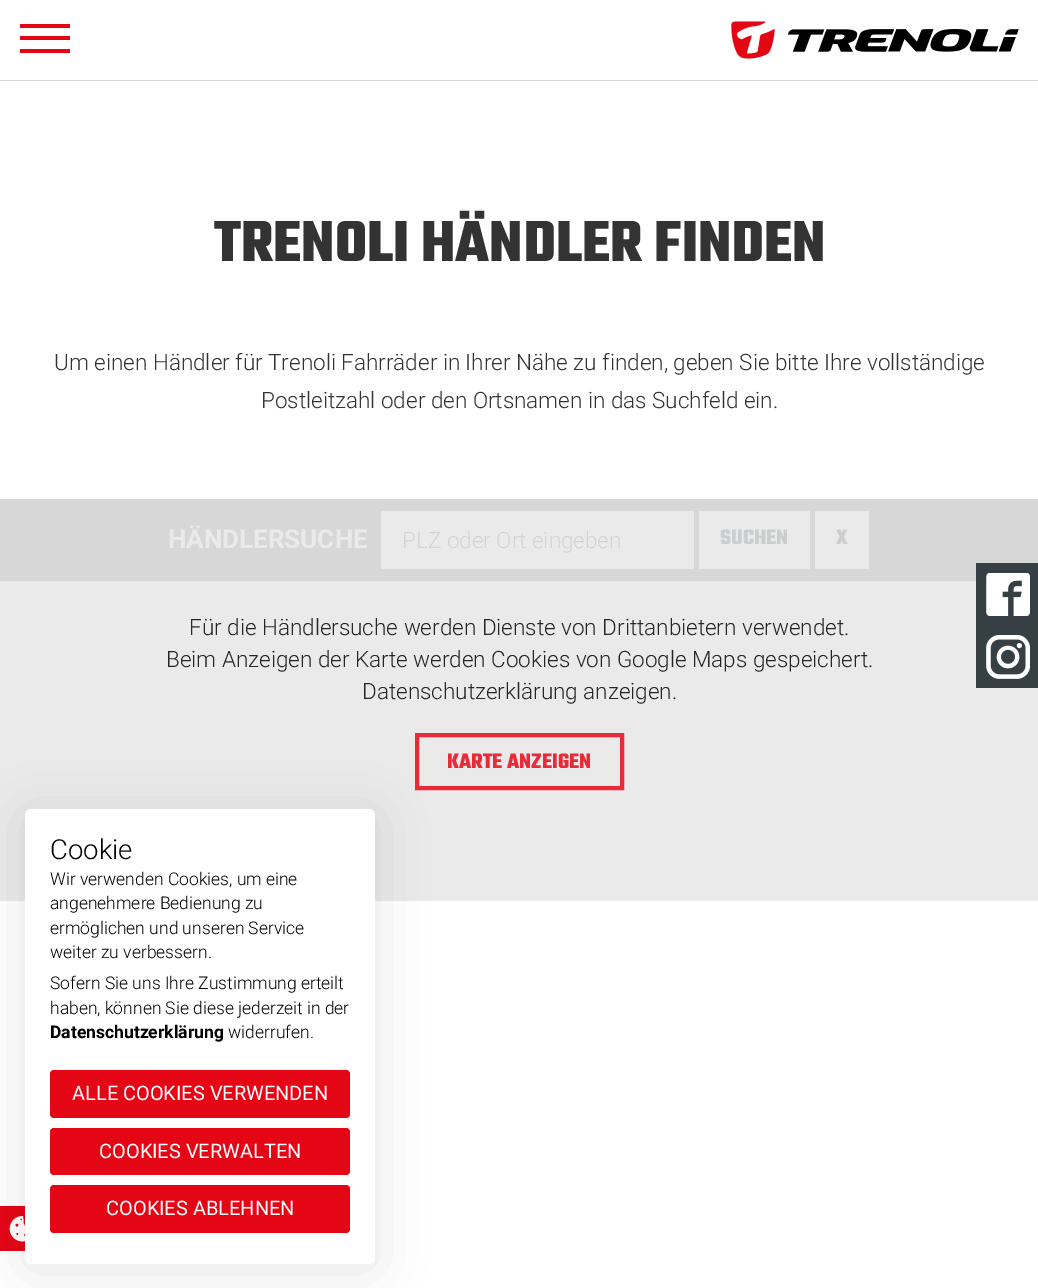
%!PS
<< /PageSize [1038 1288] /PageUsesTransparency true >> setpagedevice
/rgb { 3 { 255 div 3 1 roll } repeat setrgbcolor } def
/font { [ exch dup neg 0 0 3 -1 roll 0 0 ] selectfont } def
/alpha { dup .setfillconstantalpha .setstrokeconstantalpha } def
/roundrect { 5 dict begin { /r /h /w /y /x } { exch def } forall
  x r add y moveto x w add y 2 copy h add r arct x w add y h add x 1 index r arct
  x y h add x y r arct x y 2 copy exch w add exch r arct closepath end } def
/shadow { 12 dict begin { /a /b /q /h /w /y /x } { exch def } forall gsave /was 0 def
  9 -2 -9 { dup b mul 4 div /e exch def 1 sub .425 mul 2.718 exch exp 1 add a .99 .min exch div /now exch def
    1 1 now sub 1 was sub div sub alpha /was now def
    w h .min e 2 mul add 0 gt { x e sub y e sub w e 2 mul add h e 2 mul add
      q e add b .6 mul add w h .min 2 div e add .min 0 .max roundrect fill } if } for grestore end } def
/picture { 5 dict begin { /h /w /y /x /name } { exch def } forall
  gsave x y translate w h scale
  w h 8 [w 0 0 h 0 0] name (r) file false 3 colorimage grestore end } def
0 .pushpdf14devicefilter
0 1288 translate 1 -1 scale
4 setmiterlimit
255 255 255 rgb
0 0 1038 1288 rectfill
[
  [0 80 1038 1 214 214 214]
  [20 24 50 4 229 6 21]
  [20 36 50 4 229 6 21]
  [20 49 50 4 229 6 21]
] { aload pop rgb rectfill } forall
(img/1.rgb) 731 21 288 38 picture
[
  [0 581 1038 320 234 234 234]
  [0 499 1038 82 215 215 215]
  [381 511 313 58 234 234 234]
  [699 511 111 58 234 234 234]
  [815 511 54 58 234 234 234]
] { aload pop rgb rectfill } forall
233 43 56 rgb
4 setlinewidth
417 735 205 53 rectstroke
54 64 68 rgb
976 563 62 125 rectfill
(img/2.rgb) 986 573 44 43 picture
(img/3.rgb) 986 635 44 44 picture
229 6 21 rgb
0 1206 25 45 rectfill
(img/4.rgb) 9 1216 16 26 picture
0 0 0 rgb
25 815 350 455 6 25 0.1 shadow
255 255 255 rgb
25 809 350 455 6 roundrect fill
229 6 21 rgb
50 1070 300 48 4 roundrect fill
50 1128 300 47 4 roundrect fill
50 1185 300 48 4 roundrect fill
/Teko-Bold 62.5 font
51 51 51 rgb
214 261 moveto (TRENOLI HÄNDLER FINDEN) show
/Roboto-Light 22.5 font
54 370 moveto (Um einen Händler für Trenoli Fahrräder in Ihrer Nähe zu finden, geben Sie bitte Ihre vollständige) show
261 408 moveto (Postleitzahl oder den Ortsnamen in das Suchfeld ein.) show
/Roboto-Bold 26 font
234 234 234 rgb
168 548 moveto (HÄNDLERSUCHE) show
/Roboto-Light 22.5 font
212 212 212 rgb
402 548 moveto (PLZ oder Ort eingeben) show
/Teko-Bold 22.5 font
204 205 206 rgb
720 544 moveto (SUCHEN) show
836 544 moveto (X) show
/Roboto-Light 22.5 font
38 38 38 rgb
[
  [(Für die Händlersuche werden Dienste von Drittanbietern verwendet.) 189 635]
  [(Beim Anzeigen der Karte werden Cookies von Google Maps gespeichert.) 166 667]
  [(Datenschutzerklärung anzeigen.) 362 699]
] { aload pop moveto show } forall
/Teko-Bold 22.5 font
233 43 56 rgb
447 768 moveto (KARTE ANZEIGEN) show
/Roboto-Light 27.5 font
0 0 0 rgb
50 859 moveto (Cookie) show
/Roboto-Light 17.5 font
[
  [(Wir verwenden Cookies, um eine) 50 885]
  [(angenehmere Bedienung zu) 50 909]
  [(ermöglichen und unseren Service) 50 934]
  [(weiter zu verbessern.) 50 958]
  [(Sofern Sie uns Ihre Zustimmung erteilt) 50 989]
  [(haben, können Sie diese jederzeit in der) 50 1014]
] { aload pop moveto show } forall
/Roboto-Bold 17.5 font
50 1038 moveto (Datenschutzerklärung) show
/Roboto-Light 17.5 font
228 1038 moveto (widerrufen.) show
/Roboto-Regular 20 font
255 255 255 rgb
[
  [(ALLE COOKIES VERWENDEN) 72 1100]
  [(COOKIES VERWALTEN) 99 1158]
  [(COOKIES ABLEHNEN) 106 1215]
] { aload pop moveto show } forall
.poppdf14devicefilter showpage
